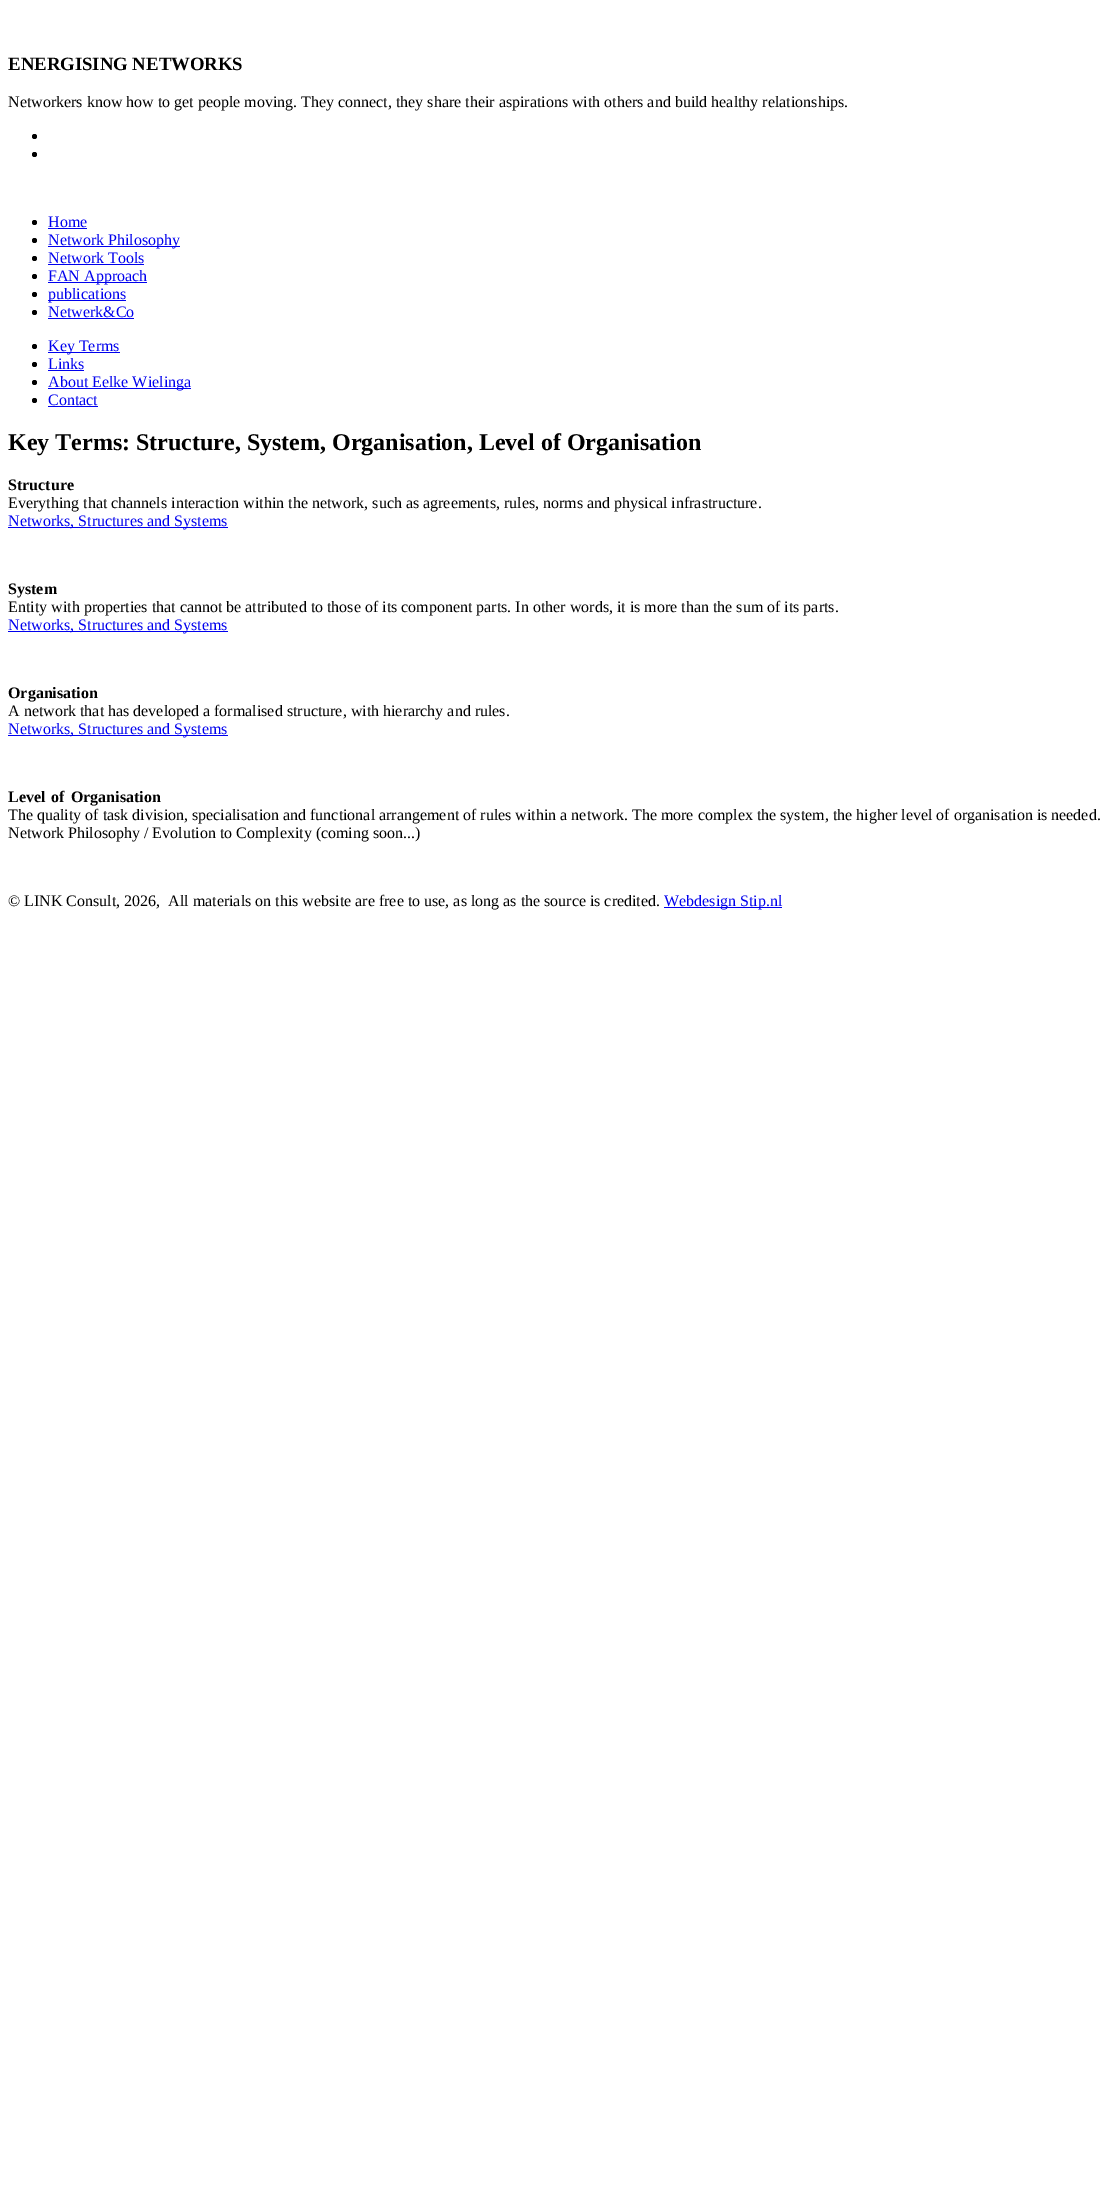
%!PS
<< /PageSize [1118 2210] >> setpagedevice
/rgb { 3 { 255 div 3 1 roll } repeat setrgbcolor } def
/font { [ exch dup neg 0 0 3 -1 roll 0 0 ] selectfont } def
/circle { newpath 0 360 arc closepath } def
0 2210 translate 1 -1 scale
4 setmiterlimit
255 255 255 rgb
0 0 1118 2210 rectfill
0 0 0 rgb
34.5 136.5 2.5 circle fill
34.5 154.5 2.5 circle fill
34.5 222.5 2.5 circle fill
0 0 238 rgb
48 228 39 1 rectfill
0 0 0 rgb
34.5 240.5 2.5 circle fill
0 0 238 rgb
48 246 132 1 rectfill
0 0 0 rgb
34.5 258.5 2.5 circle fill
0 0 238 rgb
48 264 96 1 rectfill
0 0 0 rgb
34.5 276.5 2.5 circle fill
0 0 238 rgb
48 282 99 1 rectfill
0 0 0 rgb
34.5 294.5 2.5 circle fill
0 0 238 rgb
48 300 78 1 rectfill
0 0 0 rgb
34.5 312.5 2.5 circle fill
0 0 238 rgb
48 318 86 1 rectfill
0 0 0 rgb
34.5 346.5 2.5 circle fill
0 0 238 rgb
48 352 72 1 rectfill
0 0 0 rgb
34.5 364.5 2.5 circle fill
0 0 238 rgb
48 370 36 1 rectfill
0 0 0 rgb
34.5 382.5 2.5 circle fill
0 0 238 rgb
48 388 143 1 rectfill
0 0 0 rgb
34.5 400.5 2.5 circle fill
[
  [48 406 50 1 0 0 238]
  [8 527 220 1 0 0 238]
  [8 631 220 1 0 0 238]
  [8 735 220 1 0 0 238]
  [664 907 118 1 0 0 238]
] { aload pop rgb rectfill } forall
/LiberationSerif-Bold 18.75 font
0 0 0 rgb
8 70 moveto (ENERGISING NETWORKS) show
/LiberationSerif-Regular 16 font
8 107 moveto (Networkers know how to get people moving. They connect, they share their aspirations with others and build healthy relationships.) show
0 0 238 rgb
[
  [(Home) 48 227]
  [(Network Philosophy) 48 245]
  [(Network Tools) 48 263]
  [(FAN Approach) 48 281]
  [(publications) 48 299]
  [(Netwerk&Co) 48 317]
  [(Key Terms) 48 351]
  [(Links) 48 369]
  [(About Eelke Wielinga) 48 387]
  [(Contact) 48 405]
] { aload pop moveto show } forall
/LiberationSerif-Bold 24 font
0 0 0 rgb
8 450 moveto (Key Terms: Structure, System, Organisation, Level of Organisation) show
/LiberationSerif-Bold 16 font
8 490 moveto (Structure) show
/LiberationSerif-Regular 16 font
8 508 moveto (Everything that channels interaction within the network, such as agreements, rules, norms and physical infrastructure.) show
0 0 238 rgb
8 526 moveto (Networks, Structures and Systems) show
/LiberationSerif-Bold 16 font
0 0 0 rgb
8 594 moveto (System) show
/LiberationSerif-Regular 16 font
8 612 moveto (Entity with properties that cannot be attributed to those of its component parts. In other words, it is more than the sum of its parts.) show
0 0 238 rgb
8 630 moveto (Networks, Structures and Systems) show
/LiberationSerif-Bold 16 font
0 0 0 rgb
8 698 moveto (Organisation) show
/LiberationSerif-Regular 16 font
8 716 moveto (A network that has developed a formalised structure, with hierarchy and rules.) show
0 0 238 rgb
8 734 moveto (Networks, Structures and Systems) show
/LiberationSerif-Bold 16 font
0 0 0 rgb
8 802 moveto 2 0 32 (Level of Organisation) widthshow
/LiberationSerif-Regular 16 font
[
  [(The quality of task division, specialisation and functional arrangement of rules within a network. The more complex the system, the higher level of organisation is needed.) 8 820]
  [(Network Philosophy / Evolution to Complexity \(coming soon...\)) 8 838]
  [(© LINK Consult, 2026,  All materials on this website are free to use, as long as the source is credited.) 8 906]
] { aload pop moveto show } forall
0 0 238 rgb
664 906 moveto (Webdesign Stip.nl) show
showpage
